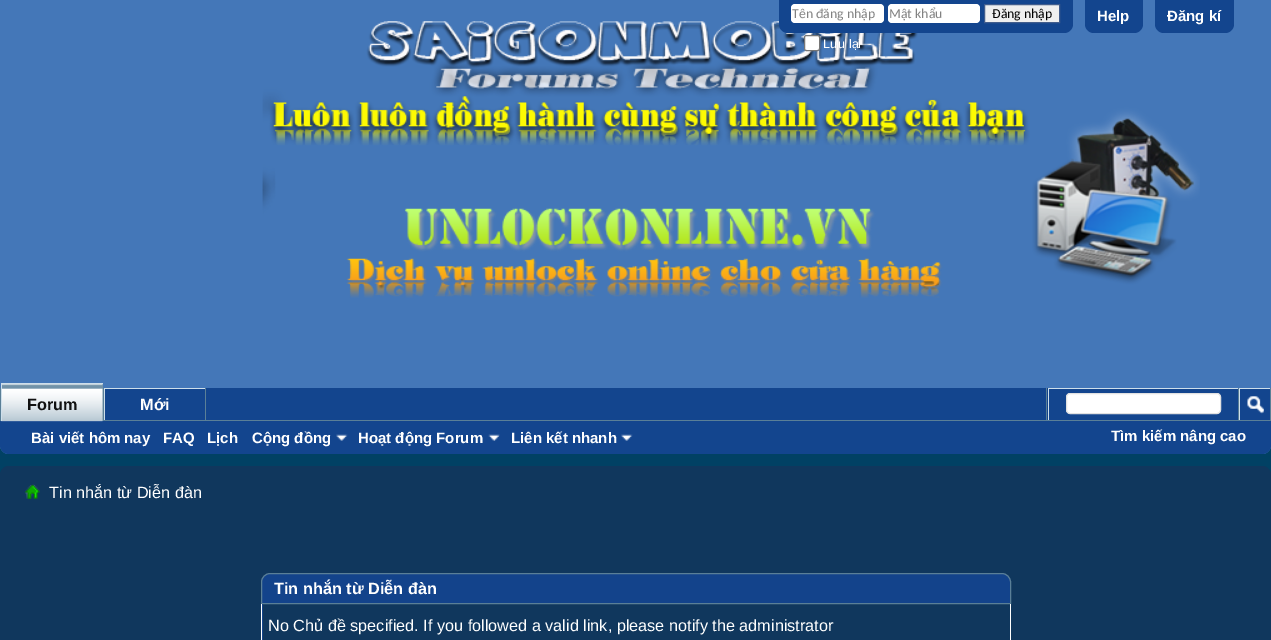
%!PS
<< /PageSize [1271 640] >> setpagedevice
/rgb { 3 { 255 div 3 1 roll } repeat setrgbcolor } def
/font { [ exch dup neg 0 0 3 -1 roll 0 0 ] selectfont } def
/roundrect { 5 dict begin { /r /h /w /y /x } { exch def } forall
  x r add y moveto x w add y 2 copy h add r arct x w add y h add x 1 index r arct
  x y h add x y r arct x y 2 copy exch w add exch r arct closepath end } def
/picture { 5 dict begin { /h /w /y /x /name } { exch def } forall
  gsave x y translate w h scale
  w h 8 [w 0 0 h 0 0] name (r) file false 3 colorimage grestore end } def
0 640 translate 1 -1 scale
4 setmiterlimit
1 65 100 rgb
0 0 1271 640 rectfill
68 119 184 rgb
0 0 moveto 1271 0 lineto 1271 445 lineto 1271 450 1267 454 1262 454 curveto 9 454 lineto 4 454 0 450 0 445 curveto closepath fill
(img/1.rgb) 262 21 938 277 picture
19 69 142 rgb
779 0 moveto 1073 0 lineto 1073 24 lineto 1073 29 1069 33 1064 33 curveto 788 33 lineto 783 33 779 29 779 24 curveto closepath fill
255 255 255 rgb
791 4 93 19 4 roundrect fill
888 4 92 19 4 roundrect fill
239 239 239 rgb
984.5 4.5 moveto 1059.5 4.5 lineto 1059.5 22.5 lineto 984.5 22.5 lineto closepath gsave fill grestore
65 93 141 rgb
stroke
255 255 255 rgb
804.5 35.5 15 15 2 roundrect gsave fill grestore
118 118 118 rgb
stroke
19 69 142 rgb
1085 0 moveto 1143 0 lineto 1143 24 lineto 1143 29 1139 33 1134 33 curveto 1094 33 lineto 1089 33 1085 29 1085 24 curveto closepath fill
1155 0 moveto 1234 0 lineto 1234 24 lineto 1234 29 1230 33 1225 33 curveto 1164 33 lineto 1159 33 1155 29 1155 24 curveto closepath fill
0 388 moveto 1271 388 lineto 1271 445 lineto 1271 450 1267 454 1262 454 curveto 9 454 lineto 4 454 0 450 0 445 curveto closepath fill
[
  [103 388 1 32 90 127 151]
  [0 388 1 32 90 127 151]
  [205 388 1 33 90 127 151]
  [104 388 101 1 206 223 235]
  [104 388 1 33 206 223 235]
  [0 420 1271 1 90 127 151]
  [2 384 101 37 113 146 168]
] { aload pop rgb rectfill } forall
(img/2.rgb) 1 384 102 38 picture
206 223 235 rgb
1 383 102 1 rectfill
1 383 1 38 rectfill
(img/3.rgb) 336 434 12 7 picture
(img/4.rgb) 488 434 12 7 picture
(img/3.rgb) 621 434 12 7 picture
[
  [1046 388 1 32 90 127 151]
  [1048 388 190 1 206 223 235]
  [1048 388 1 32 206 223 235]
] { aload pop rgb rectfill } forall
255 255 255 rgb
1066.5 393.5 154 20 3.5 roundrect gsave fill grestore
225 225 225 rgb
stroke
[
  [1270 388 1 32 90 127 151]
  [1238 388 1 32 90 127 151]
  [1239 388 31 1 206 223 235]
  [1239 388 1 32 206 223 235]
] { aload pop rgb rectfill } forall
(img/5.rgb) 1247 396 17 18 picture
16 55 93 rgb
0 466 1271 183 9 roundrect fill
(img/6.rgb) 25 484 15 15 picture
19 67 139 rgb
270 573.5 moveto 1002 573.5 lineto 1006.5 573.5 1010.5 577.5 1010.5 582 curveto 1010.5 603.5 lineto 261.5 603.5 lineto 261.5 582 lineto 261.5 577.5 265.5 573.5 270 573.5 curveto closepath gsave fill grestore
90 127 151 rgb
stroke
[
  [262 604 1 36 19 69 141]
  [1010 604 1 36 255 255 255]
  [261 604 1 36 255 255 255]
] { aload pop rgb rectfill } forall
/Carlito-Regular 13.75 font
130 130 130 rgb
792 18 moveto (Tên đăng nhập) show
889 18 moveto (Mật khẩu) show
0 0 0 rgb
992 18 moveto (Đăng nhập) show
/LiberationSans-Regular 12.5 font
255 255 255 rgb
823 48 moveto (Lưu lại) show
/LiberationSans-Bold 15 font
1097 21 moveto (Help) show
1167 21 moveto (Đăng kí) show
/LiberationSans-Bold 16.25 font
17 17 17 rgb
27 410 moveto (Forum) show
/LiberationSans-Bold 15 font
255 255 255 rgb
[
  [(Bài viết hôm nay) 31 443]
  [(FAQ) 163 443]
  [(Lịch) 207 443]
  [(Cộng đồng) 252 443]
  [(Hoạt động Forum) 358 443]
  [(Liên kết nhanh) 511 443]
] { aload pop moveto show } forall
/LiberationSans-Bold 16.25 font
140 410 moveto (Mới) show
/LiberationSans-Bold 15 font
1111 441 moveto (Tìm kiếm nâng cao) show
/LiberationSans-Regular 16.25 font
49 498 moveto (Tin nhắn từ Diễn đàn) show
/LiberationSans-Bold 16.25 font
274 594 moveto (Tin nhắn từ Diễn đàn) show
/LiberationSans-Regular 16.25 font
268 631 moveto (No Chủ đề specified. If you followed a valid link, please notify the administrator) show
showpage
